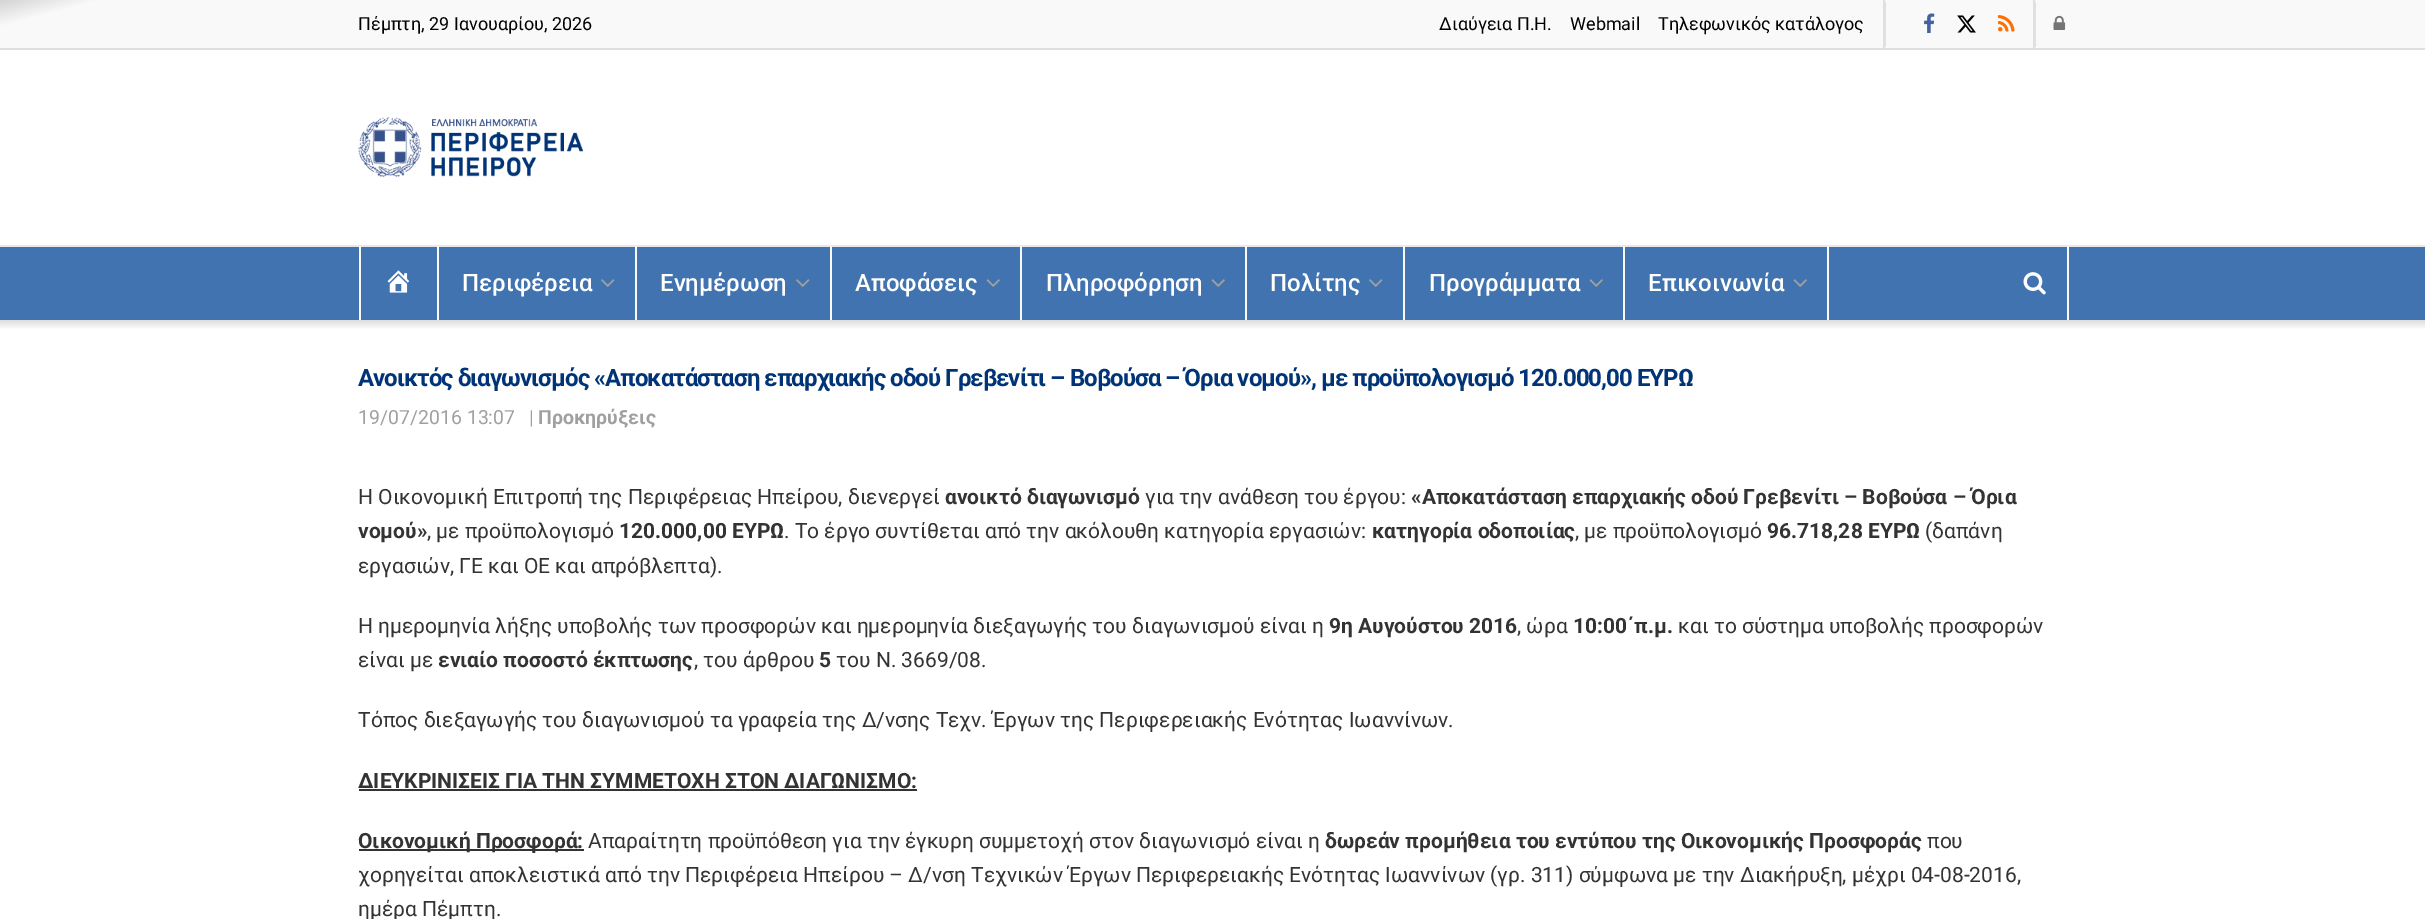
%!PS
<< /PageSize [2425 919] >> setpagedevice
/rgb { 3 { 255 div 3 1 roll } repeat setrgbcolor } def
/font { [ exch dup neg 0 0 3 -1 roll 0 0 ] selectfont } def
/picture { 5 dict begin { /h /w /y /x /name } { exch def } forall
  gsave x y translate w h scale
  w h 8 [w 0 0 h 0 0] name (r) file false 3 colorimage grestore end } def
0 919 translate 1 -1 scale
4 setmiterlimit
255 255 255 rgb
0 0 2425 919 rectfill
gsave 0 0 moveto 2425 0 lineto 2425 48 lineto 0 48 lineto closepath clip newpath
<< /ShadingType 2 /ColorSpace /DeviceRGB /Coords [1300 350 1126 -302] /Extend [true true] /Function << /FunctionType 3 /Domain [0 1] /Functions [<< /FunctionType 2 /Domain [0 1] /C0 [0.976 0.976 0.976] /C1 [0.976 0.976 0.976] /N 1 >> << /FunctionType 2 /Domain [0 1] /C0 [0.976 0.976 0.976] /C1 [0.82 0.82 0.82] /N 1 >>] /Bounds [0.96] /Encode [0 1 0 1] >> >> shfill grestore
[
  [0 48 2425 2 224 224 224]
  [1883 0 2 48 224 224 224]
  [1885 2 1 45 224 224 224]
  [2033 0 2 50 224 224 224]
] { aload pop rgb rectfill } forall
(img/1.rgb) 1924 13 11 20 picture
(img/2.rgb) 1957 15 19 18 picture
(img/3.rgb) 1998 15 17 17 picture
2035 2 1 45 rectfill
(img/4.rgb) 2053 15 13 15 picture
(img/5.rgb) 358 117 226 60 picture
[
  [0 247 2425 73 64 115 175]
  [0 245 2425 2 232 232 232]
  [1827 246 2 74 249 249 249]
  [359 246 2 74 249 249 249]
  [437 246 2 74 249 249 249]
] { aload pop rgb rectfill } forall
(img/6.rgb) 387 270 23 23 picture
635 246 2 74 rectfill
(img/7.rgb) 601 279 14 8 picture
830 246 2 74 rectfill
(img/7.rgb) 796 279 14 8 picture
1020 246 2 74 rectfill
(img/8.rgb) 986 279 14 8 picture
1245 246 2 74 rectfill
(img/8.rgb) 1211 279 14 8 picture
1403 246 2 74 rectfill
(img/7.rgb) 1369 279 14 8 picture
1623 246 2 74 rectfill
(img/8.rgb) 1589 279 14 8 picture
(img/8.rgb) 1793 279 14 8 picture
2067 246 2 74 rectfill
(img/9.rgb) 2023 272 23 23 picture
gsave 0 320 moveto 2425 320 lineto 2425 329 lineto 0 329 lineto closepath clip newpath
<< /ShadingType 2 /ColorSpace /DeviceRGB /Coords [1213 319 1213 330] /Extend [true true] /Function << /FunctionType 2 /Domain [0 1] /C0 [0.851 0.851 0.851] /C1 [1 1 1] /N 1 >> >> shfill grestore
51 51 51 rgb
359 789 558 2 rectfill
359 849 225 2 rectfill
/Roboto-Regular 18 font
0 0 0 rgb
[
  [(Πέμπτη, 29 Ιανουαρίου, 2026) 358 30]
  [(Διαύγεια Π.H.) 1439 30]
  [(Webmail) 1570 30]
  [(Τηλεφωνικός κατάλογος) 1658 30]
] { aload pop moveto show } forall
/Roboto-Medium 24 font
255 255 255 rgb
[
  [(Περιφέρεια) 462 291]
  [(Ενημέρωση) 660 291]
  [(Αποφάσεις) 855 291]
  [(Πληροφόρηση) 1046 291]
  [(Πολίτης) 1270 291]
  [(Προγράμματα) 1429 291]
  [(Επικοινωνία) 1648 291]
] { aload pop moveto show } forall
/Roboto-Bold 24 font
0 52 118 rgb
358 386 moveto -0.96 0 (Ανοικτός διαγωνισμός «Αποκατάσταση επαρχιακής οδού Γρεβενίτι – Βοβούσα – Όρια νομού», με προϋπολογισμό 120.000,00 ΕΥΡΩ) ashow
/Roboto-Regular 19.5 font
160 160 160 rgb
358 424 moveto (19/07/2016 13:07) show
529 424 moveto (|) show
/Roboto-Bold 19.5 font
538 424 moveto (Προκηρύξεις) show
/Roboto-Regular 21 font
51 51 51 rgb
358 504 moveto (Η Οικονομική Επιτροπή της Περιφέρειας Ηπείρου, διενεργεί) show
/Roboto-Bold 21 font
945 504 moveto (ανοικτό διαγωνισμό) show
/Roboto-Regular 21 font
1145 504 moveto (για την ανάθεση του έργου:) show
/Roboto-Bold 21 font
1411 504 moveto («Αποκατάσταση επαρχιακής οδού Γρεβενίτι – Βοβούσα – Όρια) show
358 538 moveto (νομού») show
/Roboto-Regular 21 font
427 538 moveto (, με προϋπολογισμό) show
/Roboto-Bold 21 font
619 538 moveto (120.000,00 ΕΥΡΩ) show
/Roboto-Regular 21 font
784 538 moveto (. Το έργο συντίθεται από την ακόλουθη κατηγορία εργασιών:) show
/Roboto-Bold 21 font
1372 538 moveto (κατηγορία οδοποιίας) show
/Roboto-Regular 21 font
1575 538 moveto (, με προϋπολογισμό) show
/Roboto-Bold 21 font
1767 538 moveto (96.718,28 ΕΥΡΩ) show
/Roboto-Regular 21 font
[
  [(\(δαπάνη) 1925 538]
  [(εργασιών, ΓΕ και ΟΕ και απρόβλεπτα\).) 358 573]
  [(Η ημερομηνία λήξης υποβολής των προσφορών και ημερομηνία διεξαγωγής του διαγωνισμού είναι η) 358 633]
] { aload pop moveto show } forall
/Roboto-Bold 21 font
1329 633 moveto (9η Αυγούστου 2016) show
/Roboto-Regular 21 font
1517 633 moveto (, ώρα) show
/Roboto-Bold 21 font
1573 633 moveto (10:00΄π.μ.) show
/Roboto-Regular 21 font
1678 633 moveto (και το σύστημα υποβολής προσφορών) show
358 667 moveto (είναι με) show
/Roboto-Bold 21 font
438 667 moveto (ενιαίο ποσοστό έκπτωσης) show
/Roboto-Regular 21 font
694 667 moveto (, του άρθρου) show
/Roboto-Bold 21 font
819 667 moveto (5) show
/Roboto-Regular 21 font
836 667 moveto (του Ν. 3669/08.) show
358 727 moveto (Τόπος διεξαγωγής του διαγωνισμού τα γραφεία της Δ/νσης Τεχν. Έργων της Περιφερειακής Ενότητας Ιωαννίνων.) show
/Roboto-Bold 21 font
358 788 moveto (ΔΙΕΥΚΡΙΝΙΣΕΙΣ ΓΙΑ ΤΗΝ ΣΥΜΜΕΤΟΧΗ ΣΤΟΝ ΔΙΑΓΩΝΙΣΜΟ:) show
358 848 moveto (Οικονομική Προσφορά:) show
/Roboto-Regular 21 font
588 848 moveto (Απαραίτητη προϋπόθεση για την έγκυρη συμμετοχή στον διαγωνισμό είναι η) show
/Roboto-Bold 21 font
1325 848 moveto (δωρεάν προμήθεια του εντύπου της Οικονομικής Προσφοράς) show
/Roboto-Regular 21 font
[
  [(που) 1927 848]
  [(χορηγείται αποκλειστικά από την Περιφέρεια Ηπείρου – Δ/νση Τεχνικών Έργων Περιφερειακής Ενότητας Ιωαννίνων \(γρ. 311\) σύμφωνα με την Διακήρυξη, μέχρι 04-08-2016,) 358 882]
  [(ημέρα Πέμπτη.) 358 916]
] { aload pop moveto show } forall
showpage
